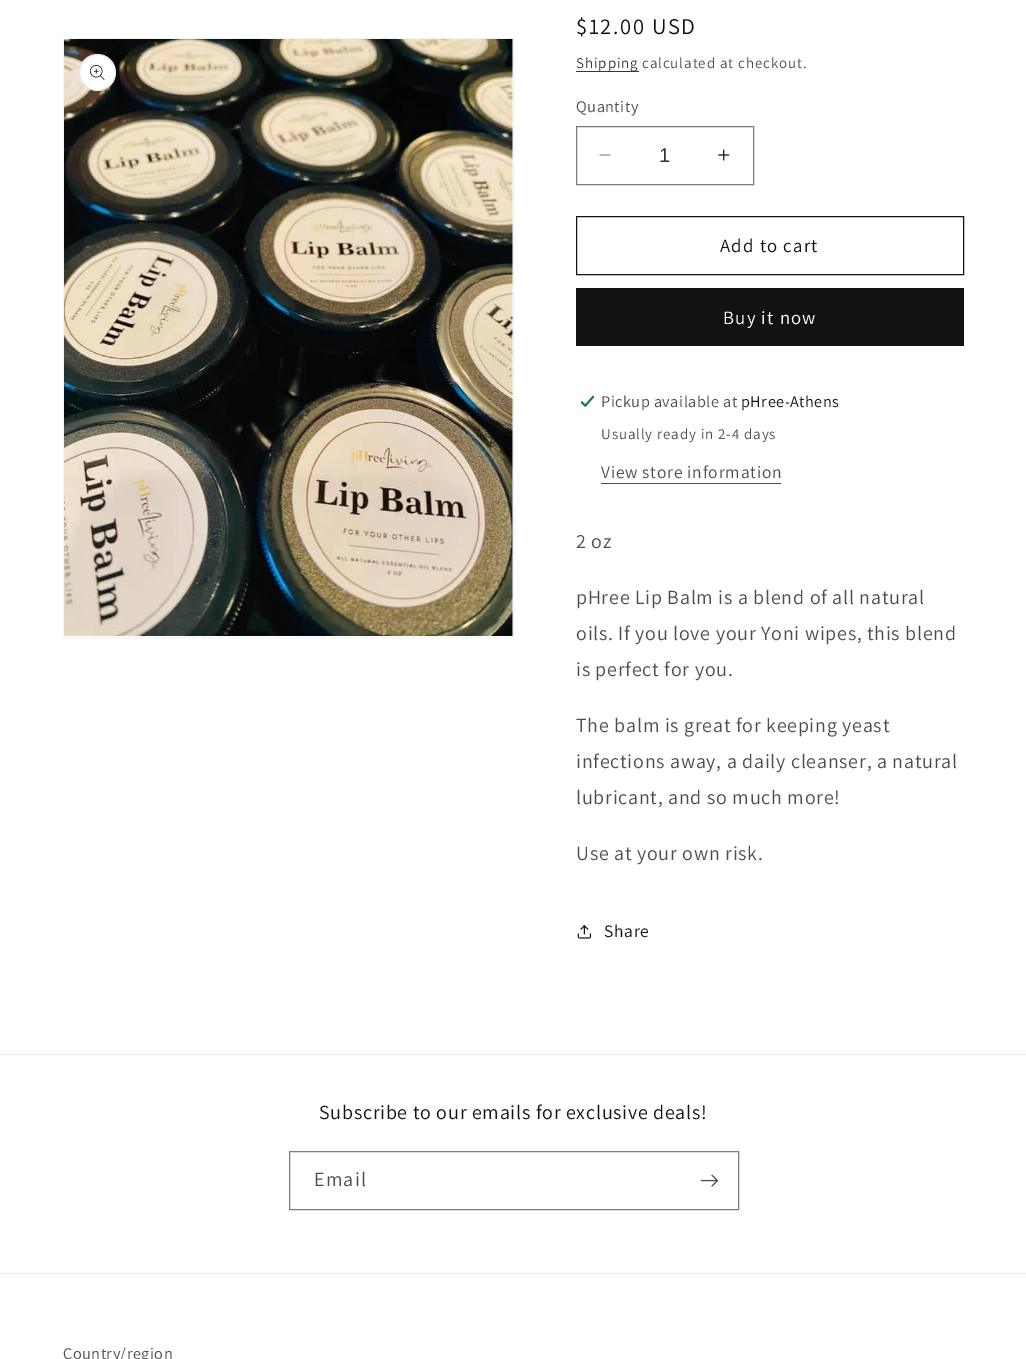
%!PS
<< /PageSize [1026 1359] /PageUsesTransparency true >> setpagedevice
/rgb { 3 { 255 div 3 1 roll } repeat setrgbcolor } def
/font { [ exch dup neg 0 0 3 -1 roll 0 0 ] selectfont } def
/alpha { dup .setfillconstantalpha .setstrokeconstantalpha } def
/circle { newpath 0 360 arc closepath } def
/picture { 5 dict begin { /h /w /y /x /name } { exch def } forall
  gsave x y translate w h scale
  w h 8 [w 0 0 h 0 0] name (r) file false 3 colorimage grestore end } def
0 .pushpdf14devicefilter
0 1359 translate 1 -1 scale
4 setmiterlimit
255 255 255 rgb
0 0 1026 1359 rectfill
243 243 243 rgb
63.5 38.5 450 599 rectstroke
(img/1.rgb) 64 39 449 597 picture
255 255 255 rgb
97.5 72.5 18.5 circle fill
0.1 alpha
18 18 18 rgb
97.5 72.5 18 circle stroke
1 alpha
(img/2.rgb) 90 65 15 15 picture
54 54 54 rgb
576 71 63 1 rectfill
(img/3.rgb) 599 154 12 2 picture
(img/4.rgb) 718 149 12 12 picture
125 125 125 rgb
576.5 126.5 177 58 rectstroke
18 18 18 rgb
576.5 216.5 387 58 rectstroke
576 288 388 58 rectfill
(img/5.rgb) 580 395 15 13 picture
77 77 77 rgb
601 483 180 1 rectfill
(img/6.rgb) 577 925 15 14 picture
236 236 236 rgb
0 1054 1026 1 rectfill
125 125 125 rgb
289.5 1151.5 449 58 rectstroke
(img/7.rgb) 700 1174 18 13 picture
236 236 236 rgb
0 1273 1026 1 rectfill
/Assistant-Regular 22.5 font
18 18 18 rgb
576 34 moveto 1.6 0 ($12.00 USD) ashow
/Assistant-Regular 15 font
53 53 53 rgb
576 68 moveto 0.9 0 (Shipping) ashow
77 77 77 rgb
642 68 moveto 0.9 0 (calculated at checkout.) ashow
/Assistant-Regular 16.25 font
576 112 moveto 0.5 0 (Quantity) ashow
/LiberationSans-Regular 20 font
53 53 53 rgb
659 162 moveto (1) show
/Assistant-Regular 18.75 font
18 18 18 rgb
720 252 moveto 1.25 0 (Add to cart) ashow
255 255 255 rgb
723 324 moveto 1.25 0 (Buy it now) ashow
/Assistant-Regular 16.25 font
77 77 77 rgb
601 407 moveto 0.5 0 (Pickup available at) ashow
18 18 18 rgb
741 407 moveto 0.5 0 (pHree-Athens) ashow
/Assistant-Regular 15 font
77 77 77 rgb
601 439 moveto 0.9 0 (Usually ready in 2-4 days) ashow
/Assistant-Regular 17.5 font
601 478 moveto 0.75 0 (View store information) ashow
/Assistant-Regular 20 font
576 548 moveto 0.75 0 (2 oz) ashow
576 604 moveto 0.75 0 (pHree Lip Balm is a blend of all natural) ashow
576 640 moveto 0.75 0 (oils. If you love your Yoni wipes, this blend) ashow
576 676 moveto 0.75 0 (is perfect for you.) ashow
576 732 moveto 0.75 0 (The balm is great for keeping yeast) ashow
576 768 moveto 0.75 0 (infections away, a daily cleanser, a natural) ashow
576 804 moveto 0.75 0 (lubricant, and so much more!) ashow
576 860 moveto 0.75 0 (Use at your own risk.) ashow
/Assistant-Regular 17.5 font
18 18 18 rgb
604 937 moveto 0.75 0 (Share) ashow
/Assistant-Regular 20 font
319 1119 moveto 0.75 0 (Subscribe to our emails for exclusive deals!) ashow
77 77 77 rgb
314 1186 moveto 1.25 0 (Email) ashow
/Assistant-Regular 16.25 font
63 1359 moveto 0.5 0 (Country/region) ashow
.poppdf14devicefilter showpage
